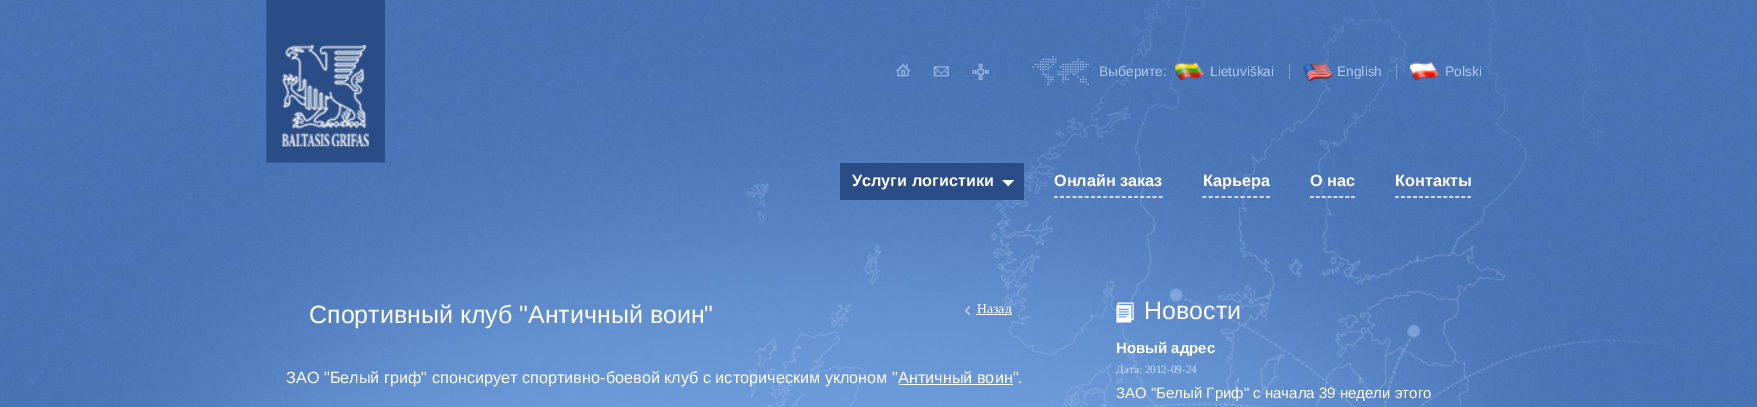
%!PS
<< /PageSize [1757 407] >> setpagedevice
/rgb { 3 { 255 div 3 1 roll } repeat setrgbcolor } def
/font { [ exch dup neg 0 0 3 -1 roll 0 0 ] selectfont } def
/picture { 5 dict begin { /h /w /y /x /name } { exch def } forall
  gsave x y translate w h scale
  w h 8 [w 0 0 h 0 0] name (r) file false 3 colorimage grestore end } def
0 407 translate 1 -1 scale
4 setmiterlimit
255 255 255 rgb
0 0 1757 407 rectfill
(img/1.rgb) 0 0 1757 407 picture
(img/2.rgb) 266 0 119 163 picture
(img/3.rgb) 896 63 15 14 picture
(img/4.rgb) 933 66 16 11 picture
(img/5.rgb) 972 63 17 17 picture
(img/6.rgb) 1032 56 57 29 picture
(img/7.rgb) 1175 62 29 19 picture
122 160 211 rgb
1289 64 1 15 rectfill
(img/8.rgb) 1302 62 31 20 picture
1396 64 1 15 rectfill
(img/9.rgb) 1410 62 29 19 picture
43 77 135 rgb
840 163 184 37 rectfill
(img/10.rgb) 1002 180 12 7 picture
255 255 255 rgb
1.2 setlinewidth
[3.75 2.42] 0 setdash
1054 197 moveto 1162.5 197 lineto stroke
[3.75 2.62] 0 setdash
1202.5 197 moveto 1270 197 lineto stroke
[3.75 2.14] 0 setdash
1310 197 moveto 1355 197 lineto stroke
[3.75 2.29] 0 setdash
1395 197 moveto 1471 197 lineto stroke
899 384 114 1 rectfill
(img/11.rgb) 965 306 5 9 picture
976 314 35 1 rectfill
(img/12.rgb) 1116 302 18 21 picture
/LiberationSans-Regular 13.75 font
173 201 239 rgb
[
  [(Выберите:) 1099 76]
  [(Lietuviškai) 1210 76]
  [(English) 1337 76]
  [(Polski) 1445 76]
] { aload pop moveto show } forall
/LiberationSans-Bold 16.25 font
255 255 255 rgb
[
  [(Услуги логистики) 852 186]
  [(Онлайн заказ) 1054 186]
  [(Карьера) 1203 186]
  [(О нас) 1310 186]
  [(Контакты) 1395 186]
] { aload pop moveto show } forall
/LiberationSans-Regular 25 font
309 323 moveto (Спортивный клуб "Античный воин") show
/LiberationSans-Regular 16.25 font
286 383 moveto (ЗАО "Белый гриф" спонсирует спортивно-боевой клуб с историческим уклоном "Античный воин".) show
/LiberationSerif-Regular 13.75 font
977 313 moveto (Назад) show
/LiberationSans-Regular 25 font
1144 319 moveto (Новости) show
/LiberationSans-Bold 15 font
1116 353 moveto (Новый адрес) show
/LiberationSerif-Regular 11.25 font
199 222 253 rgb
1116 373 moveto (Дата: 2012-09-24) show
/LiberationSans-Regular 15 font
255 255 255 rgb
1116 398 moveto (ЗАО "Белый Гриф" с начала 39 недели этого) show
showpage
